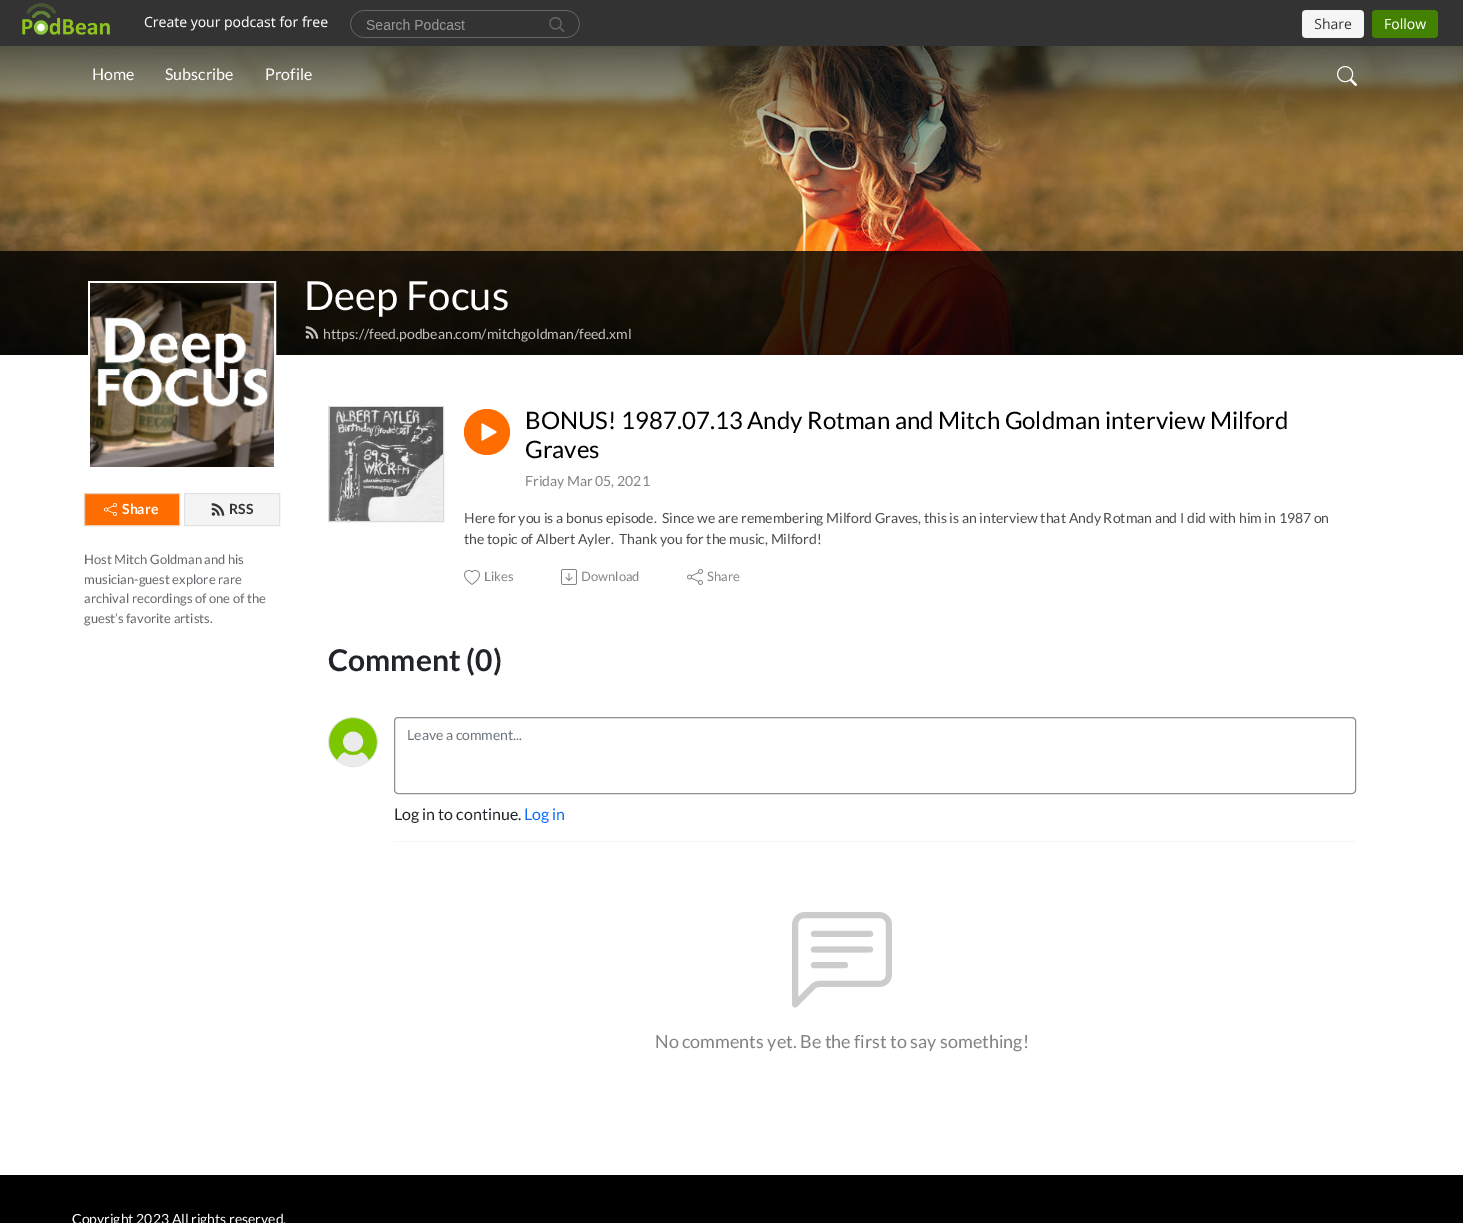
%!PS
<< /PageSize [1463 1223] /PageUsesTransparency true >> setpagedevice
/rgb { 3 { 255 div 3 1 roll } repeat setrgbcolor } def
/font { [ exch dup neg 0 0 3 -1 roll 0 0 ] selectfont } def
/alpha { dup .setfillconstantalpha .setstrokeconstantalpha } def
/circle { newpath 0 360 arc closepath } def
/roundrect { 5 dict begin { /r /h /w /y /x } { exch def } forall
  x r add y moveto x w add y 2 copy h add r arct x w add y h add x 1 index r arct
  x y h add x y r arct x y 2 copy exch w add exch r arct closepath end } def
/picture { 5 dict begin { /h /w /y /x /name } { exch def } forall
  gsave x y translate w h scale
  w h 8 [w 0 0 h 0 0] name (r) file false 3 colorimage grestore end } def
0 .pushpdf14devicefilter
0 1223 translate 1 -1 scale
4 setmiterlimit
255 255 255 rgb
0 0 1463 1223 rectfill
51 51 51 rgb
0 0 1463 46 rectfill
(img/1.rgb) 22 3 1416 35 picture
(img/3.rgb) 0 46 1463 309 picture
(img/2.rgb) 1337 66 20 20 picture
0.8 alpha
0 0 0 rgb
0 251 1463 104 rectfill
1 alpha
(img/4.rgb) 305 326 14 13 picture
255 255 255 rgb
2 setlinewidth
89 282 186 186 rectstroke
(img/5.rgb) 90 283 184 184 picture
255 109 0 rgb
84.5 493.5 moveto 179.5 493.5 lineto 179.5 525.5 lineto 84.5 525.5 lineto closepath gsave fill grestore
232 203 181 rgb
1 setlinewidth
stroke
(img/6.rgb) 104 503 13 13 picture
244 244 244 rgb
184.5 493.5 moveto 279.5 493.5 lineto 279.5 525.5 lineto 184.5 525.5 lineto closepath gsave fill grestore
226 226 226 rgb
stroke
(img/7.rgb) 211 503 14 13 picture
218 218 218 rgb
328.5 406.5 115 115 rectstroke
(img/8.rgb) 329 407 114 114 picture
255 109 0 rgb
487 432 23 circle fill
(img/9.rgb) 481 423 16 18 picture
(img/10.rgb) 464 570 16 15 picture
(img/11.rgb) 561 569 16 16 picture
(img/12.rgb) 687 569 16 16 picture
227 227 227 rgb
353 742 24.5 circle stroke
(img/13.rgb) 329 718 48 48 picture
245 245 245 rgb
394 841 962 1 rectfill
144 144 144 rgb
394.5 717.5 961 76 3.5 roundrect stroke
(img/14.rgb) 792 912 100 96 picture
0 0 0 rgb
0 1175 1463 48 rectfill
/Lato-Regular 16 font
255 255 255 rgb
[
  [(Home) 92 80]
  [(Subscribe) 165 80]
  [(Profile) 265 80]
] { aload pop moveto show } forall
/Lato-Regular 40 font
304 310 moveto (Deep Focus) show
/Lato-Regular 14 font
195 194 193 rgb
323 339 moveto (https://feed.podbean.com/mitchgoldman/feed.xml) show
/Lato-Bold 14 font
255 255 255 rgb
122 514 moveto (Share) show
51 51 51 rgb
229 514 moveto (RSS) show
/Lato-Regular 13 font
100 102 105 rgb
[
  [(Host Mitch Goldman and his) 84 564]
  [(musician-guest explore rare) 84 584]
  [(archival recordings of one of the) 84 603]
  [(guest’s favorite artists.) 84 623]
] { aload pop moveto show } forall
/Lato-Regular 24 font
0 0 0 rgb
525 429 moveto (BONUS! 1987.07.13 Andy Rotman and Mitch Goldman interview Milford) show
525 458 moveto (Graves) show
/Lato-Regular 14 font
131 131 131 rgb
525 486 moveto (Friday Mar 05, 2021) show
76 76 76 rgb
464 523 moveto (Here for you is a bonus episode.  Since we are remembering Milford Graves, this is an interview that Andy Rotman and I did with him in 1987 on) show
464 544 moveto (the topic of Albert Ayler.  Thank you for the music, Milford!) show
/Lato-Regular 13 font
131 131 131 rgb
[
  [(Likes) 484 581]
  [(Download) 581 581]
  [(Share) 707 581]
] { aload pop moveto show } forall
/Lato-Bold 30 font
33 37 41 rgb
328 671 moveto (Comment \(0\)) show
/Lato-Regular 14 font
108 117 125 rgb
407 740 moveto (Leave a comment...) show
/Lato-Regular 16 font
33 37 41 rgb
394 820 moveto (Log in to continue.) show
13 110 253 rgb
524 820 moveto (Log in) show
/Lato-Regular 18 font
131 131 131 rgb
655 1048 moveto (No comments yet. Be the first to say something!) show
/Lato-Regular 14 font
255 255 255 rgb
72 1224 moveto (Copyright 2023 All rights reserved.) show
.poppdf14devicefilter showpage
